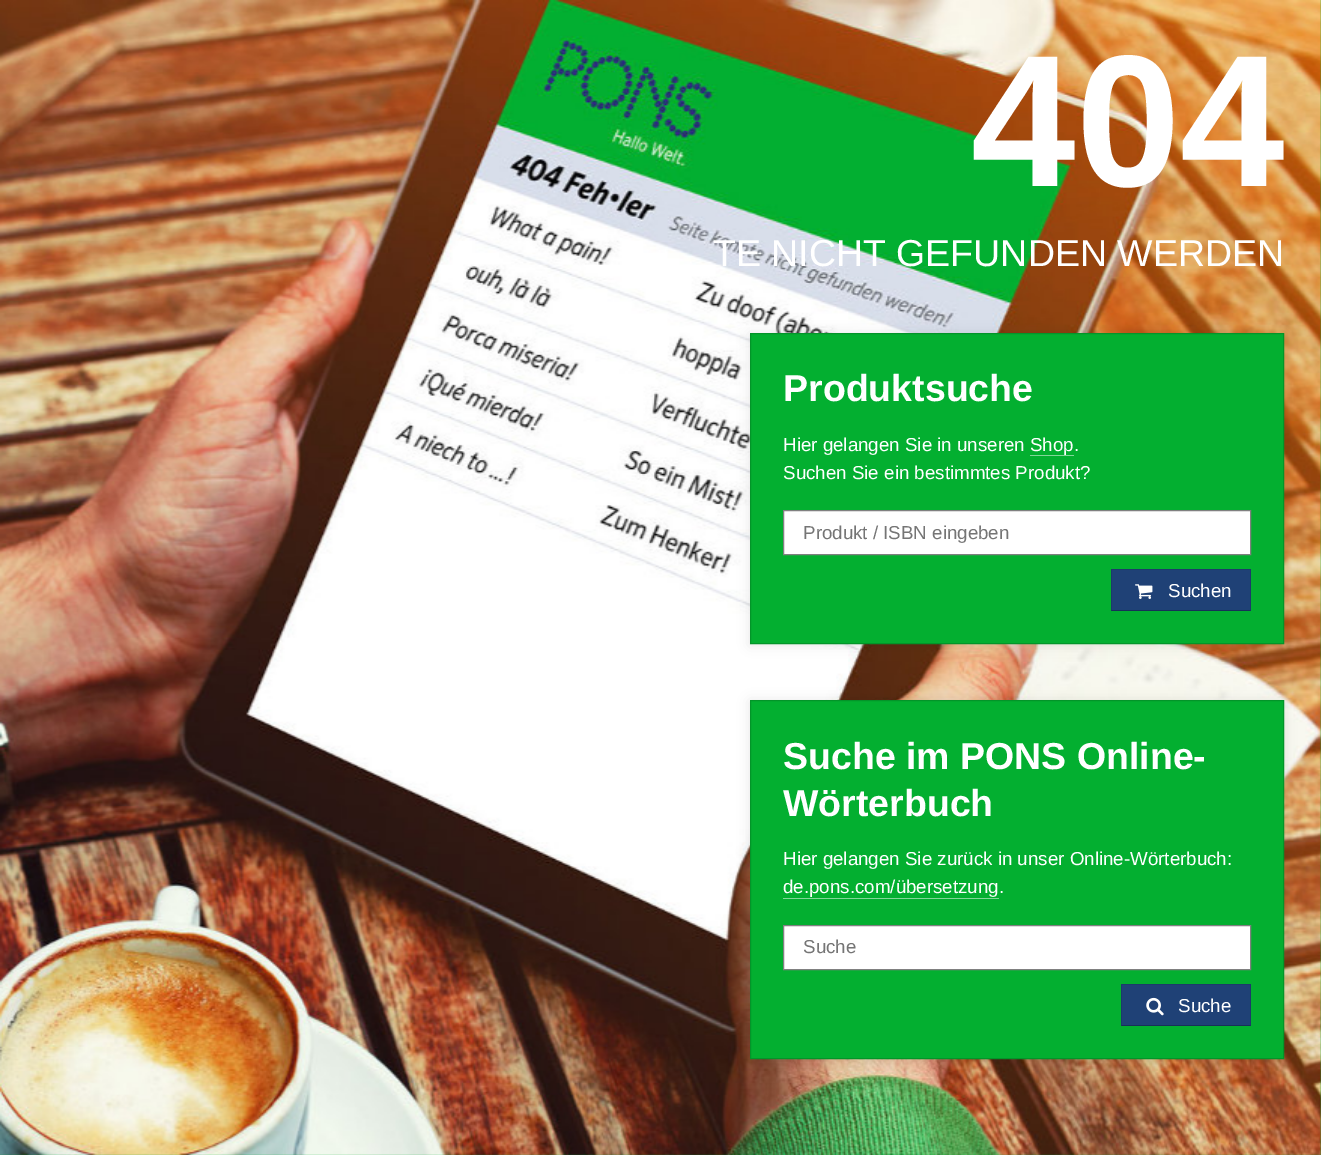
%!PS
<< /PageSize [1321 1155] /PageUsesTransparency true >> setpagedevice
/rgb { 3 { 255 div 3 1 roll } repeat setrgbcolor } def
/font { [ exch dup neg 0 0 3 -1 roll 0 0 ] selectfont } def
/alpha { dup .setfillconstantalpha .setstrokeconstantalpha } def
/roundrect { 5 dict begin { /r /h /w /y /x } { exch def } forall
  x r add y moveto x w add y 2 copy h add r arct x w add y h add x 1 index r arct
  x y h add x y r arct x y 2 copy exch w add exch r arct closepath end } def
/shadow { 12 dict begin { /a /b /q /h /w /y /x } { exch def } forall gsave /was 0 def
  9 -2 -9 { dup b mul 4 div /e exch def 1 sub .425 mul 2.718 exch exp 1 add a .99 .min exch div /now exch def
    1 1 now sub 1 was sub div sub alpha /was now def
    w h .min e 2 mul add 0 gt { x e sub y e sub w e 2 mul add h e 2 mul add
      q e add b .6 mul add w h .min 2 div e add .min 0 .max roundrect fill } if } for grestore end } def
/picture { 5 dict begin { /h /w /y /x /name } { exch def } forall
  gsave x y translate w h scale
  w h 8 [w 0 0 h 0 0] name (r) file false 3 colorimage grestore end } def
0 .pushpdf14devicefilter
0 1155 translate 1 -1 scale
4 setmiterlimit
3 175 48 rgb
0 0 1321 1155 rectfill
(img/1.rgb) 0 0 1321 1155 picture
0 0 0 rgb
750 334 534 311 0 6 0.1 shadow
3 175 48 rgb
750.5 333.5 moveto 1283.5 333.5 lineto 1283.5 643.5 lineto 750.5 643.5 lineto closepath gsave fill grestore
3 149 41 rgb
stroke
129 215 152 rgb
1030 455 44 1 rectfill
255 255 255 rgb
783.5 510.5 moveto 1250.5 510.5 lineto 1250.5 554.5 lineto 783.5 554.5 lineto closepath gsave fill grestore
128 128 128 rgb
stroke
31 65 118 rgb
1111 569 140 42 rectfill
28 59 106 rgb
1111 569 moveto 1251 569 lineto 1250 570 lineto 1112 570 lineto closepath fill
0.1 alpha
0 0 0 rgb
1251 569 moveto 1251 611 lineto 1250 610 lineto 1250 570 lineto closepath fill
0.25 alpha
1251 611 moveto 1111 611 lineto 1112 610 lineto 1250 610 lineto closepath fill
0.1 alpha
1111 611 moveto 1111 569 lineto 1112 570 lineto 1112 610 lineto closepath fill
1 alpha
(img/2.rgb) 1135 584 18 15 picture
750 701 534 359 0 6 0.1 shadow
3 175 48 rgb
750.5 700.5 moveto 1283.5 700.5 lineto 1283.5 1058.5 lineto 750.5 1058.5 lineto closepath gsave fill grestore
3 149 41 rgb
stroke
129 215 152 rgb
783 898 216 1 rectfill
255 255 255 rgb
783.5 925.5 moveto 1250.5 925.5 lineto 1250.5 969.5 lineto 783.5 969.5 lineto closepath gsave fill grestore
128 128 128 rgb
stroke
31 65 118 rgb
1121 984 130 42 rectfill
28 59 106 rgb
1121 984 moveto 1251 984 lineto 1250 985 lineto 1122 985 lineto closepath fill
0.1 alpha
0 0 0 rgb
1251 984 moveto 1251 1026 lineto 1250 1025 lineto 1250 985 lineto closepath fill
0.25 alpha
1251 1026 moveto 1121 1026 lineto 1122 1025 lineto 1250 1025 lineto closepath fill
0.1 alpha
1121 1026 moveto 1121 984 lineto 1122 985 lineto 1122 1025 lineto closepath fill
1 alpha
(img/3.rgb) 1146 997 18 19 picture
/LiberationSans-Bold 188 font
255 255 255 rgb
971 186 moveto (404) show
/LiberationSans-Regular 37.5 font
713 266 moveto (TE NICHT GEFUNDEN WERDEN) show
/LiberationSans-Bold 37.5 font
783 401 moveto (Produktsuche) show
/LiberationSans-Regular 18.75 font
783 451 moveto (Hier gelangen Sie in unseren Shop.) show
783 479 moveto (Suchen Sie ein bestimmtes Produkt?) show
117 117 117 rgb
803 539 moveto (Produkt / ISBN eingeben) show
255 255 255 rgb
1168 597 moveto (Suchen) show
/LiberationSans-Bold 37.5 font
783 769 moveto (Suche im PONS Online-) show
783 816 moveto (Wörterbuch) show
/LiberationSans-Regular 18.75 font
783 865 moveto (Hier gelangen Sie zurück in unser Online-Wörterbuch:) show
783 893 moveto (de.pons.com/übersetzung.) show
117 117 117 rgb
803 953 moveto (Suche) show
255 255 255 rgb
1178 1012 moveto (Suche) show
.poppdf14devicefilter showpage
